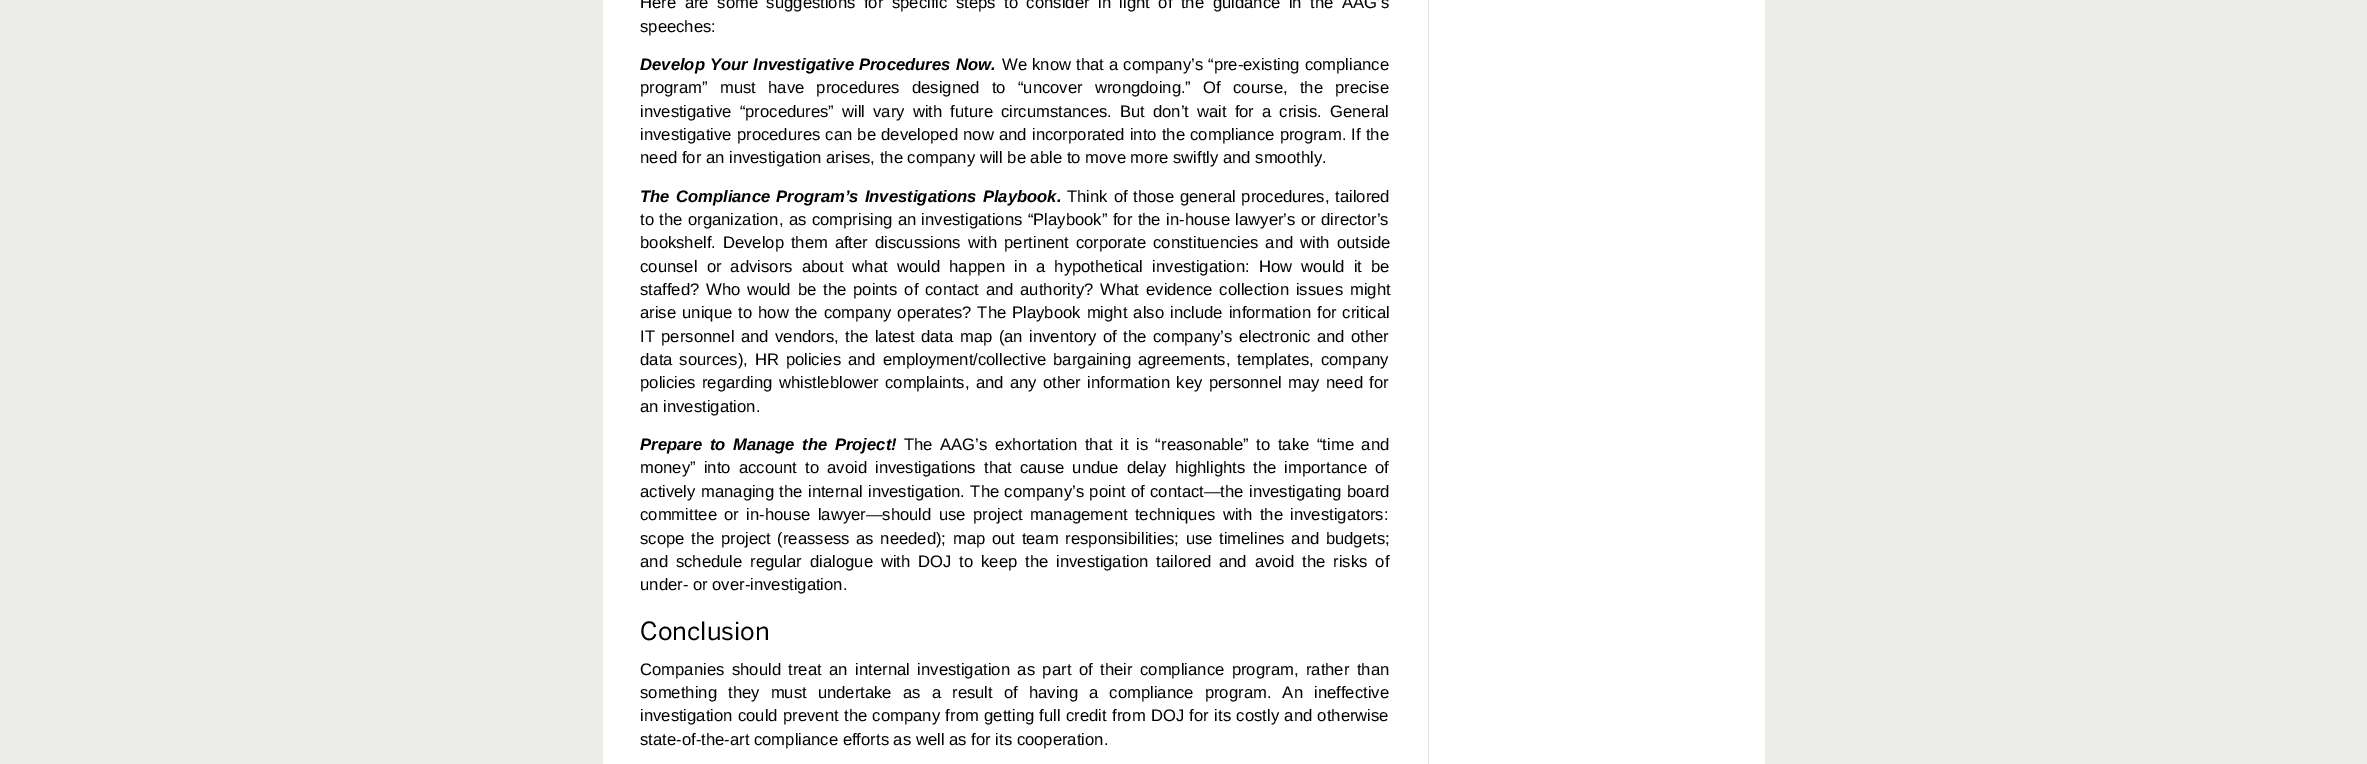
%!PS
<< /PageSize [2367 764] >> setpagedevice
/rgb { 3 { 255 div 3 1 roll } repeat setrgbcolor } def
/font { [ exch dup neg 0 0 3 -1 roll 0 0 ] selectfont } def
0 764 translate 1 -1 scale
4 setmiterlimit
236 236 232 rgb
0 0 2367 764 rectfill
255 255 255 rgb
603 0 1162 764 rectfill
217 225 230 rgb
1428 0 1 764 rectfill
/LiberationSans-Regular 16.65 font
0 0 0 rgb
640 8 moveto 3.9 0 32 (Here are some suggestions for specific steps to consider in light of the guidance in the AAG’s) widthshow
640 32 moveto (speeches:) show
/LiberationSans-BoldItalic 16.65 font
640 70 moveto 0.5 0 32 (Develop Your Investigative Procedures Now.) widthshow
/LiberationSans-Regular 16.65 font
1002 70 moveto 0.5 0 32 (We know that a company’s “pre-existing compliance) widthshow
640 93 moveto 7.6 0 32 (program” must have procedures designed to “uncover wrongdoing.” Of course, the precise) widthshow
640 117 moveto 3.4 0 32 (investigative “procedures” will vary with future circumstances. But don’t wait for a crisis. General) widthshow
640 140 moveto 0.6 0 32 (investigative procedures can be developed now and incorporated into the compliance program. If the) widthshow
640 163 moveto (need for an investigation arises, the company will be able to move more swiftly and smoothly.) show
/LiberationSans-BoldItalic 16.65 font
640 202 moveto 1.5 0 32 (The Compliance Program’s Investigations Playbook.) widthshow
/LiberationSans-Regular 16.65 font
1067 202 moveto 1.25 0 32 (Think of those general procedures, tailored) widthshow
640 225 moveto 0.8 0 32 (to the organization, as comprising an investigations “Playbook” for the in-house lawyer’s or director’s) widthshow
640 248 moveto 2.25 0 32 (bookshelf. Develop them after discussions with pertinent corporate constituencies and with outside) widthshow
640 272 moveto 4.5 0 32 (counsel or advisors about what would happen in a hypothetical investigation: How would it be) widthshow
640 295 moveto 2.25 0 32 (staffed? Who would be the points of contact and authority? What evidence collection issues might) widthshow
640 318 moveto 1.4 0 32 (arise unique to how the company operates? The Playbook might also include information for critical) widthshow
640 342 moveto 1.8 0 32 (IT personnel and vendors, the latest data map \(an inventory of the company’s electronic and other) widthshow
640 365 moveto 2.25 0 32 (data sources\), HR policies and employment/collective bargaining agreements, templates, company) widthshow
640 388 moveto 1.8 0 32 (policies regarding whistleblower complaints, and any other information key personnel may need for) widthshow
640 412 moveto (an investigation.) show
/LiberationSans-BoldItalic 16.65 font
640 450 moveto 2.9 0 32 (Prepare to Manage the Project!) widthshow
/LiberationSans-Regular 16.65 font
904 450 moveto 2.9 0 32 (The AAG’s exhortation that it is “reasonable” to take “time and) widthshow
640 473 moveto 3.5 0 32 (money” into account to avoid investigations that cause undue delay highlights the importance of) widthshow
640 497 moveto 0.75 0 32 (actively managing the internal investigation. The company’s point of contact—the investigating board) widthshow
640 520 moveto 2.75 0 32 (committee or in-house lawyer—should use project management techniques with the investigators:) widthshow
640 544 moveto 2 0 32 (scope the project \(reassess as needed\); map out team responsibilities; use timelines and budgets;) widthshow
640 567 moveto 3.25 0 32 (and schedule regular dialogue with DOJ to keep the investigation tailored and avoid the risks of) widthshow
640 590 moveto (under- or over-investigation.) show
/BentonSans-Regular 25 font
640 640 moveto (Conclusion) show
/LiberationSans-Regular 16.65 font
640 675 moveto 2.9 0 32 (Companies should treat an internal investigation as part of their compliance program, rather than) widthshow
640 698 moveto 6.5 0 32 (something they must undertake as a result of having a compliance program. An ineffective) widthshow
640 721 moveto 0.75 0 32 (investigation could prevent the company from getting full credit from DOJ for its costly and otherwise) widthshow
640 745 moveto (state-of-the-art compliance efforts as well as for its cooperation.) show
showpage
